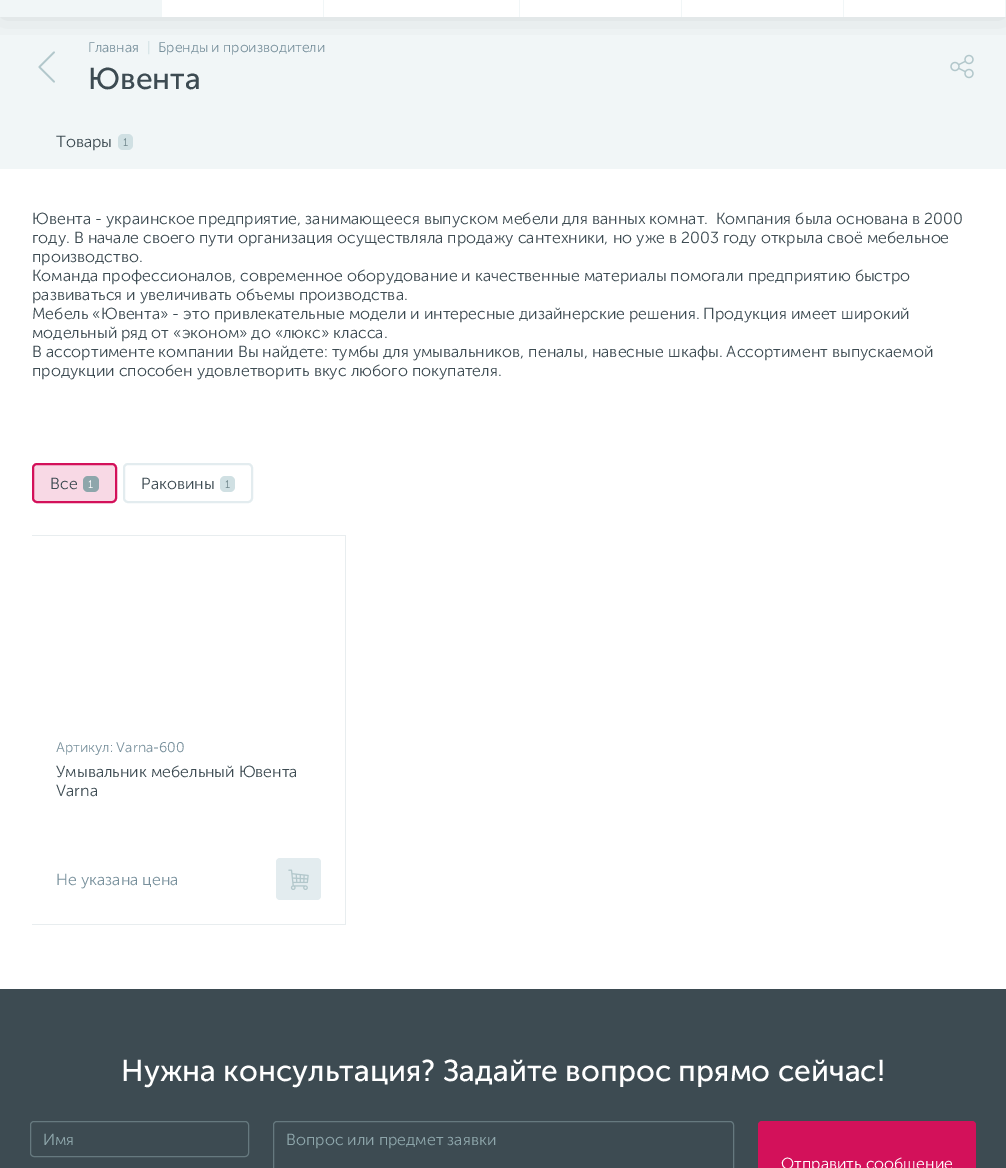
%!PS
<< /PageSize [1006 1168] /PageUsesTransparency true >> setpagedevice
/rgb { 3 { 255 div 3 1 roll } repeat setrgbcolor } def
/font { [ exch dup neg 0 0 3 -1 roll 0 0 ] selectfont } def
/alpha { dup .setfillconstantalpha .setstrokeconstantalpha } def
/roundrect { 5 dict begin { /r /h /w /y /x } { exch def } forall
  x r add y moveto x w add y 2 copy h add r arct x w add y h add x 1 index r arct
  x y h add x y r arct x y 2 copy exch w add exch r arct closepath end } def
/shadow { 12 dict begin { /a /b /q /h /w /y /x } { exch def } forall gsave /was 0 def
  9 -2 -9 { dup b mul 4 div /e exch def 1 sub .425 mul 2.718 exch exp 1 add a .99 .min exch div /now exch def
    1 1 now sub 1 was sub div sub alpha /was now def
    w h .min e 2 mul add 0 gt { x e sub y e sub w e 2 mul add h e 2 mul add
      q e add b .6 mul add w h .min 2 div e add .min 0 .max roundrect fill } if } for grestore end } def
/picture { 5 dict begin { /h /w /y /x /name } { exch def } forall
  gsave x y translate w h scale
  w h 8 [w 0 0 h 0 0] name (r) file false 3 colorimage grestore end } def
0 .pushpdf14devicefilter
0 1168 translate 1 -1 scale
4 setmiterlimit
255 255 255 rgb
0 0 1006 1168 rectfill
241 246 247 rgb
0 17 1006 152 rectfill
(img/1.rgb) 38 51 17 32 picture
(img/2.rgb) 950 54 24 25 picture
gsave
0 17 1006 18 rectclip
61 75 82 rgb
0 -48 1006 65 0 16 0.16 shadow
grestore
[
  [0 0 162 17 241 246 247]
  [323 0 1 17 241 246 247]
  [519 0 1 17 241 246 247]
  [681 0 1 17 241 246 247]
  [843 0 1 17 241 246 247]
  [1005 0 1 17 241 246 247]
] { aload pop rgb rectfill } forall
208 224 227 rgb
118 134 15 16 5 roundrect fill
248 217 229 rgb
33 464 83 38 4 roundrect gsave fill grestore
211 17 90 rgb
2 setlinewidth
stroke
142 166 171 rgb
83 476 16 16 5 roundrect fill
227 236 239 rgb
124 464 128 38 4 roundrect stroke
208 224 227 rgb
220 476 15 16 5 roundrect fill
[
  [32 535 314 1 232 237 239]
  [345 535 1 390 232 237 239]
  [32 924 314 1 232 237 239]
] { aload pop rgb rectfill } forall
227 236 239 rgb
276 858 45 42 4 roundrect fill
(img/3.rgb) 288 869 21 21 picture
61 75 82 rgb
0 989 1006 179 rectfill
102 121 127 rgb
1 setlinewidth
30.5 1121.5 218 35 3.5 roundrect stroke
273.5 1121.5 460 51 3.5 roundrect stroke
211 17 90 rgb
758 1121 218 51 4 roundrect fill
/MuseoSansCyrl-Light 14 font
120 144 156 rgb
88 52 moveto (Главная) show
208 224 227 rgb
147 52 moveto (|) show
120 144 156 rgb
158 52 moveto (Бренды и производители) show
/MuseoSansCyrl-Regular 30 font
61 75 82 rgb
88 89 moveto (Ювента) show
/MuseoSansCyrl-Light 16 font
56 147 moveto (Товары) show
/MuseoSansCyrl-Light 11 font
110 133 138 rgb
123 146 moveto (1) show
/MuseoSansCyrl-Light 16 font
61 75 82 rgb
[
  [(Ювента - украинское предприятие, занимающееся выпуском мебели для ванных комнат.  Компания была основана в 2000) 32 224]
  [(году. В начале своего пути организация осуществляла продажу сантехники, но уже в 2003 году открыла своё мебельное) 32 243]
  [(производство.) 32 262]
  [(Команда профессионалов, современное оборудование и качественные материалы помогали предприятию быстро) 32 281]
  [(развиваться и увеличивать объемы производства.) 32 300]
  [(Мебель «Ювента» - это привлекательные модели и интересные дизайнерские решения. Продукция имеет широкий) 32 319]
  [(модельный ряд от «эконом» до «люкс» класса.) 32 338]
  [(В ассортименте компании Вы найдете: тумбы для умывальников, пеналы, навесные шкафы. Ассортимент выпускаемой) 32 357]
  [(продукции способен удовлетворить вкус любого покупателя.) 32 376]
  [(Все) 50 489]
] { aload pop moveto show } forall
/MuseoSansCyrl-Light 11 font
255 255 255 rgb
88 488 moveto (1) show
/MuseoSansCyrl-Light 16 font
61 75 82 rgb
141 489 moveto (Раковины) show
/MuseoSansCyrl-Light 11 font
110 133 138 rgb
225 488 moveto (1) show
/MuseoSansCyrl-Light 14 font
120 144 156 rgb
56 752 moveto (Артикул: Varna-600) show
/MuseoSansCyrl-Light 16 font
61 75 82 rgb
56 777 moveto (Умывальник мебельный Ювента) show
56 796 moveto (Varna) show
120 144 156 rgb
56 885 moveto (Не указана цена) show
/MuseoSansCyrl-Regular 30 font
255 255 255 rgb
121 1081 moveto (Нужна консультация? Задайте вопрос прямо сейчас!) show
/MuseoSansCyrl-Light 16 font
142 166 171 rgb
43 1145 moveto (Имя) show
286 1145 moveto (Вопрос или предмет заявки) show
255 255 255 rgb
781 1169 moveto (Отправить сообщение) show
.poppdf14devicefilter showpage
